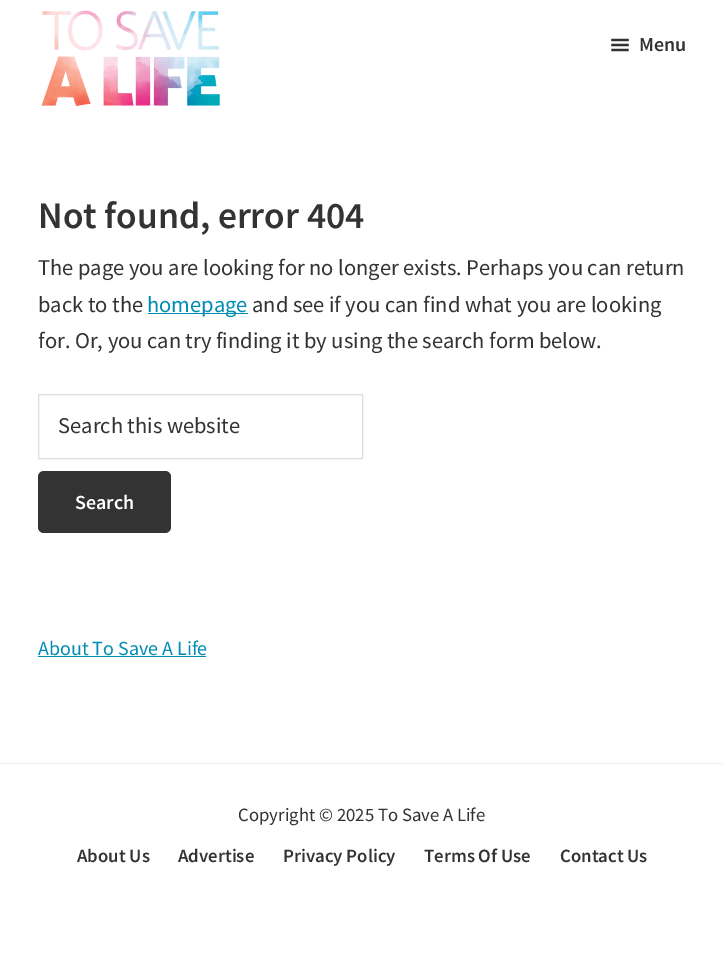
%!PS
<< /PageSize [723 967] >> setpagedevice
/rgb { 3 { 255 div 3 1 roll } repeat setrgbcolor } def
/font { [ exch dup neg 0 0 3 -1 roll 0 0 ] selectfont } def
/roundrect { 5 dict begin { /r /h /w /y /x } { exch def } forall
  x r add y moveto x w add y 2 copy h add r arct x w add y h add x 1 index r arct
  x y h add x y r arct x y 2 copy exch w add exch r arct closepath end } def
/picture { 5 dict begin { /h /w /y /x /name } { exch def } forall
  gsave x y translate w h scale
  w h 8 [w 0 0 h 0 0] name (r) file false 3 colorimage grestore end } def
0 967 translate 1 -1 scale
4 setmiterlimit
255 255 255 rgb
0 0 723 967 rectfill
(img/1.rgb) 41 10 179 97 picture
(img/2.rgb) 611 38 18 14 picture
0 140 179 rgb
148 313 100 1 rectfill
221 221 221 rgb
38.5 394.5 324 64 rectstroke
51 51 51 rgb
38 471 133 62 6 roundrect fill
0 140 179 rgb
38 656 168 1 rectfill
238 238 238 rgb
0 763 723 1 rectfill
/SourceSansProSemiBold-SemiBold 20 font
51 51 51 rgb
639 51 moveto (Menu) show
/SourceSansProSemiBold-SemiBold 37.5 font
38 228 moveto (Not found, error 404) show
/SourceSansPro-Regular 22.5 font
38 275 moveto (The page you are looking for no longer exists. Perhaps you can return) show
38 312 moveto (back to the) show
0 140 179 rgb
147 312 moveto (homepage) show
51 51 51 rgb
[
  [(and see if you can find what you are looking) 252 312]
  [(for. Or, you can try finding it by using the search form below.) 38 348]
  [(Search this website) 58 433]
] { aload pop moveto show } forall
/SourceSansProSemiBold-SemiBold 20 font
255 255 255 rgb
75 509 moveto (Search) show
/SourceSansPro-Regular 20 font
0 140 179 rgb
38 655 moveto (About To Save A Life) show
/SourceSansPro-Regular 18.75 font
51 51 51 rgb
238 821 moveto (Copyright © 2025 To Save A Life) show
/SourceSansProSemiBold-SemiBold 18.75 font
[
  [(About Us) 77 862]
  [(Advertise) 178 862]
  [(Privacy Policy) 283 862]
  [(Terms Of Use) 424 862]
  [(Contact Us) 560 862]
] { aload pop moveto show } forall
showpage
